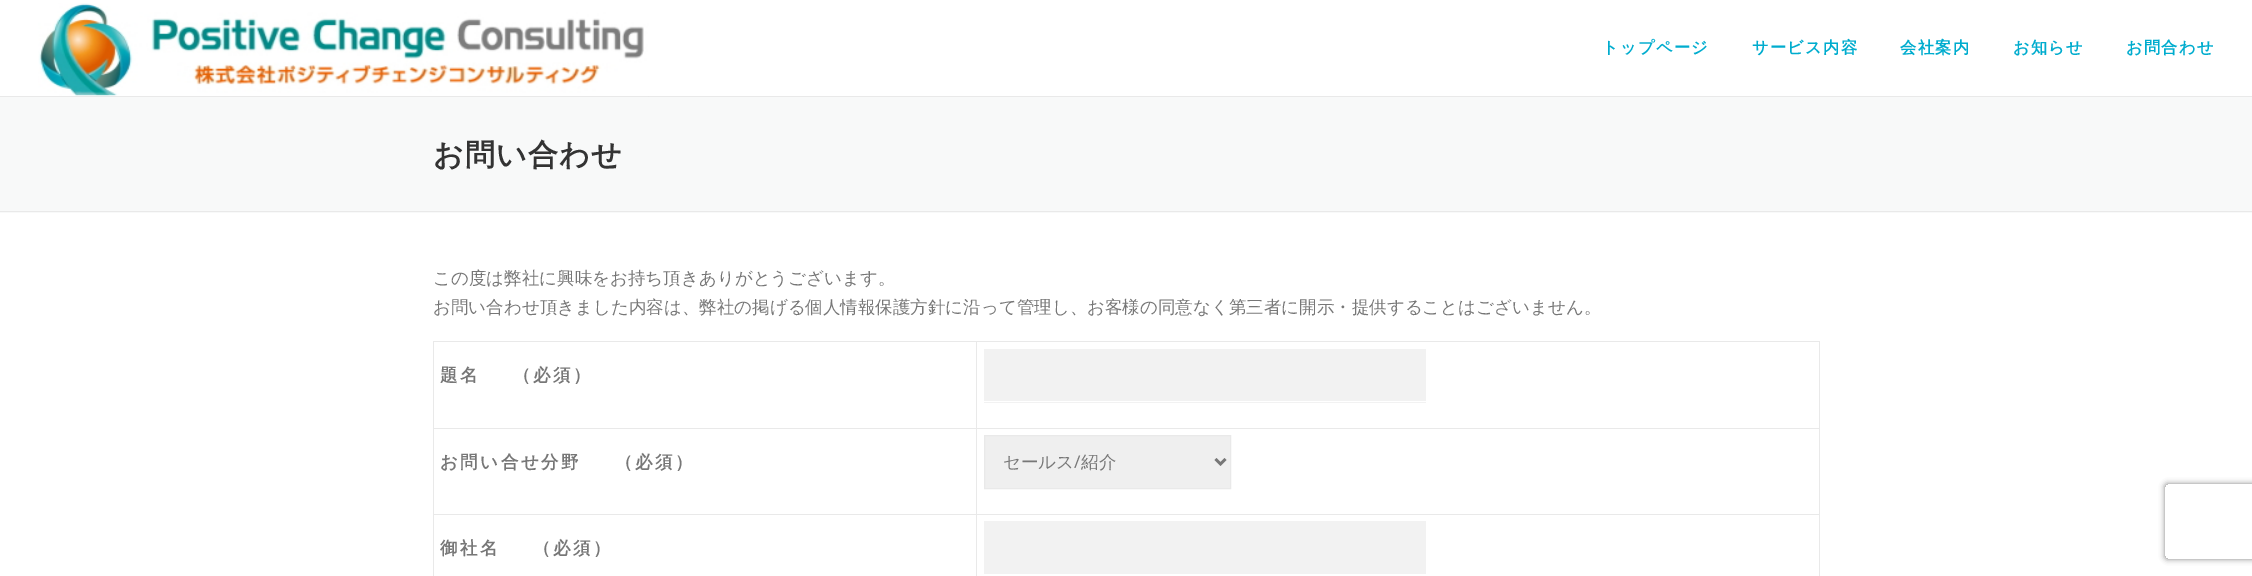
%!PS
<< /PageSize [2252 576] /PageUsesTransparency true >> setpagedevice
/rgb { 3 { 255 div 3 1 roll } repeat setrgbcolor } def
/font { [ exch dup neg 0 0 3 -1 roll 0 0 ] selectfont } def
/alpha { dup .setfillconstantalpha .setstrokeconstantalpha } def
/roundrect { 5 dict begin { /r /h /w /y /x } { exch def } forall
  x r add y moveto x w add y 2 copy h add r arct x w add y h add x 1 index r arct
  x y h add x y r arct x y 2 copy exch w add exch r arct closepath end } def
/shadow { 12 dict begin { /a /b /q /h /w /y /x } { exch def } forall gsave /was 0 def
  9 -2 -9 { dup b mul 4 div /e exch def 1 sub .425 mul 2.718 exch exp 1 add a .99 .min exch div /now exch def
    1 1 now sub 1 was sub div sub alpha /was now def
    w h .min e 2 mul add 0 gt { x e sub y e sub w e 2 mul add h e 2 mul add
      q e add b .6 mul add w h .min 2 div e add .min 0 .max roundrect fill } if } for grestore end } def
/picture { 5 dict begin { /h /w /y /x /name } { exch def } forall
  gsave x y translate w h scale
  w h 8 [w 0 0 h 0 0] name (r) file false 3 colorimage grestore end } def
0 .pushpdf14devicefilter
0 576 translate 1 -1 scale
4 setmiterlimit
255 255 255 rgb
0 0 2252 576 rectfill
233 233 233 rgb
0 96 2252 1 rectfill
(img/1.rgb) 38 3 611 94 picture
[
  [0 97 2252 116 248 249 249]
  [0 211 2252 1 233 233 233]
  [433 341 1387 1 233 233 233]
  [1819 341 1 235 233 233 233]
  [433 341 1 235 233 233 233]
  [976 428 844 1 233 233 233]
  [976 514 844 1 233 233 233]
  [976 514 1 62 233 233 233]
  [433 514 545 1 233 233 233]
  [976 428 1 87 233 233 233]
  [433 428 545 1 233 233 233]
  [976 341 1 88 233 233 233]
  [984 349 442 54 242 242 242]
  [984 401 442 1 255 255 255]
] { aload pop rgb rectfill } forall
239 239 239 rgb
984.5 435.5 moveto 1230.5 435.5 lineto 1230.5 488.5 lineto 984.5 488.5 lineto closepath gsave fill grestore
233 233 233 rgb
stroke
119 119 119 rgb
2.5 setlinewidth
1215.5 459 moveto 1220.5 464 lineto 1225.5 459 lineto stroke
242 242 242 rgb
984 521 442 53 rectfill
gsave
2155 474 moveto 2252 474 lineto 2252 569 lineto 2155 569 lineto closepath 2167.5 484 moveto 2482.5 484 lineto 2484 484 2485 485 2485 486.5 curveto 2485 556.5 lineto 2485 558 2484 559 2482.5 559 curveto 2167.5 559 lineto 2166 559 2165 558 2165 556.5 curveto 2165 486.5 lineto 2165 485 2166 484 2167.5 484 curveto closepath eoclip newpath
128 128 128 rgb
2165 484 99 75 2.5 3 1 shadow
grestore
/WenQuanYiZenHei-Bold 16.25 font
0 172 206 rgb
1602 53 moveto 1.25 0 (トップページ) ashow
1752 53 moveto 1.25 0 (サービス内容) ashow
1900 53 moveto 1.25 0 (会社案内) ashow
2013 53 moveto 1.25 0 (お知らせ) ashow
2126 53 moveto 1.25 0 (お問合わせ) ashow
/WenQuanYiZenHei-Bold 30 font
51 51 51 rgb
433 165 moveto 1.25 0 (お問い合わせ) ashow
/WenQuanYiZenHei-Medium 17.5 font
119 119 119 rgb
433 284 moveto (この度は弊社に興味をお持ち頂きありがとうございます。) show
433 313 moveto (お問い合わせ頂きました内容は、弊社の掲げる個人情報保護方針に沿って管理し、お客様の同意なく第三者に開示・提供することはございません。) show
/WenQuanYiZenHei-Bold 17.5 font
440 381 moveto 2.5 0 (題名) ashow
513 381 moveto 2.5 0 (（必須）) ashow
440 468 moveto 2.5 0 (お問い合せ分野) ashow
615 468 moveto 2.5 0 (（必須）) ashow
/WenQuanYiZenHei-Medium 17.5 font
1003 468 moveto (セールス) show
/OpenSans-Regular 17.5 font
1074 468 moveto (/) show
/WenQuanYiZenHei-Medium 17.5 font
1081 468 moveto (紹介) show
/WenQuanYiZenHei-Bold 17.5 font
440 554 moveto 2.5 0 (御社名) ashow
533 554 moveto 2.5 0 (（必須）) ashow
.poppdf14devicefilter showpage
